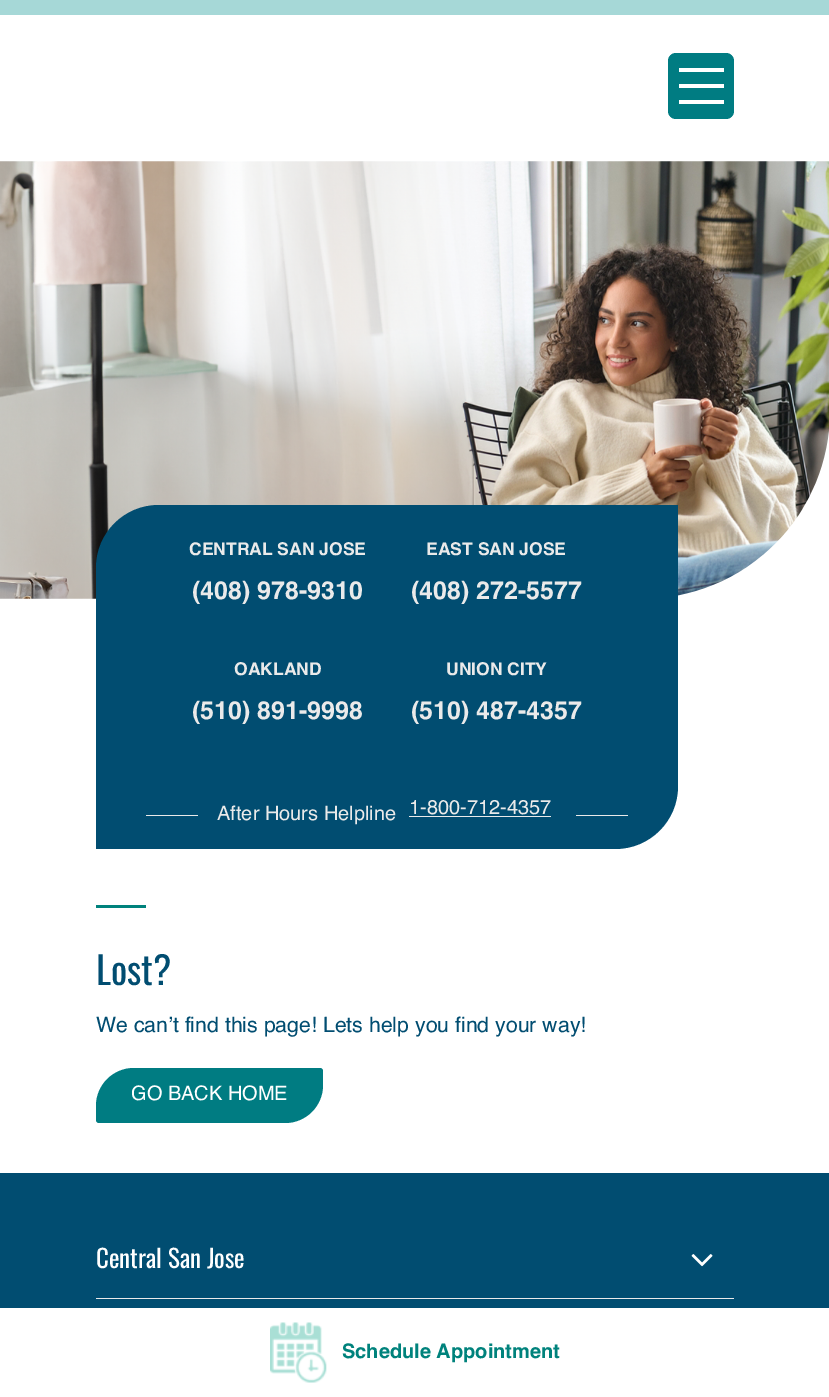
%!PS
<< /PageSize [829 1397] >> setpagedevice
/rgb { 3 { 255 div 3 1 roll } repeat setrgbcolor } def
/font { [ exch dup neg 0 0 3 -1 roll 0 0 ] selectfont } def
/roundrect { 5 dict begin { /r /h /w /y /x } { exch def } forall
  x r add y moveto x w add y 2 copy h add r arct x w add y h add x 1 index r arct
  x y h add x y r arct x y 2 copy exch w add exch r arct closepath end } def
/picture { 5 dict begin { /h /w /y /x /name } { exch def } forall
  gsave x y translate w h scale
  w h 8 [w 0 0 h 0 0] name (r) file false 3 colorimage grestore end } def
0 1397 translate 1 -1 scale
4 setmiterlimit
255 255 255 rgb
0 0 829 1397 rectfill
166 216 215 rgb
0 0 829 15 rectfill
0 124 130 rgb
668 53 66 66 8 roundrect fill
[
  [679 68 45 4 255 255 255]
  [679 84 45 4 255 255 255]
  [679 100 45 4 255 255 255]
] { aload pop rgb rectfill } forall
(img/1.rgb) 0 161 829 438 picture
1 77 113 rgb
159 505 moveto 678 505 lineto 678 786 lineto 678 821 650 849 615 849 curveto 96 849 lineto 96 568 lineto 96 533 124 505 159 505 curveto closepath fill
[
  [146 815 482 1 234 234 234]
  [198 815 378 1 1 77 113]
  [409 816 142 1 234 234 234]
  [96 905 50 3 0 130 124]
] { aload pop rgb rectfill } forall
0 124 130 rgb
134 1068 moveto 320 1068 lineto 321.5 1068 323 1069.5 323 1071 curveto 323 1085 lineto 323 1106 306 1123 285 1123 curveto 99 1123 lineto 97.5 1123 96 1121.5 96 1120 curveto 96 1106 lineto 96 1085 113 1068 134 1068 curveto closepath fill
1 77 113 rgb
0 1173 829 135 rectfill
234 234 234 rgb
96 1298 638 1 rectfill
(img/2.rgb) 691 1254 22 13 picture
(img/3.rgb) 270 1322 57 61 picture
/Helvetica-Bold 17.5 font
189 555 moveto (CENTRAL SAN JOSE) show
/Helvetica-Bold 25 font
192 599 moveto (\(408\) 978-9310) show
/Helvetica-Bold 17.5 font
426 555 moveto (EAST SAN JOSE) show
/Helvetica-Bold 25 font
411 599 moveto (\(408\) 272-5577) show
/Helvetica-Bold 17.5 font
234 675 moveto (OAKLAND) show
/Helvetica-Bold 25 font
192 719 moveto (\(510\) 891-9998) show
/Helvetica-Bold 17.5 font
446 675 moveto (UNION CITY) show
/Helvetica-Bold 25 font
411 719 moveto (\(510\) 487-4357) show
/Helvetica-Regular 20 font
217 820 moveto (After Hours Helpline) show
409 814 moveto (1-800-712-4357) show
/Oswald-Regular 38 font
1 77 113 rgb
96 985 moveto (Lost?) show
/Helvetica-Regular 21.25 font
96 1032 moveto (We can’t find this page! Lets help you find your way!) show
/Helvetica-Regular 20 font
255 255 255 rgb
131 1100 moveto (GO BACK HOME) show
/Oswald-Regular 25 font
96 1268 moveto (Central San Jose) show
/Helvetica-Bold 20 font
0 130 124 rgb
342 1358 moveto (Schedule Appointment) show
showpage
